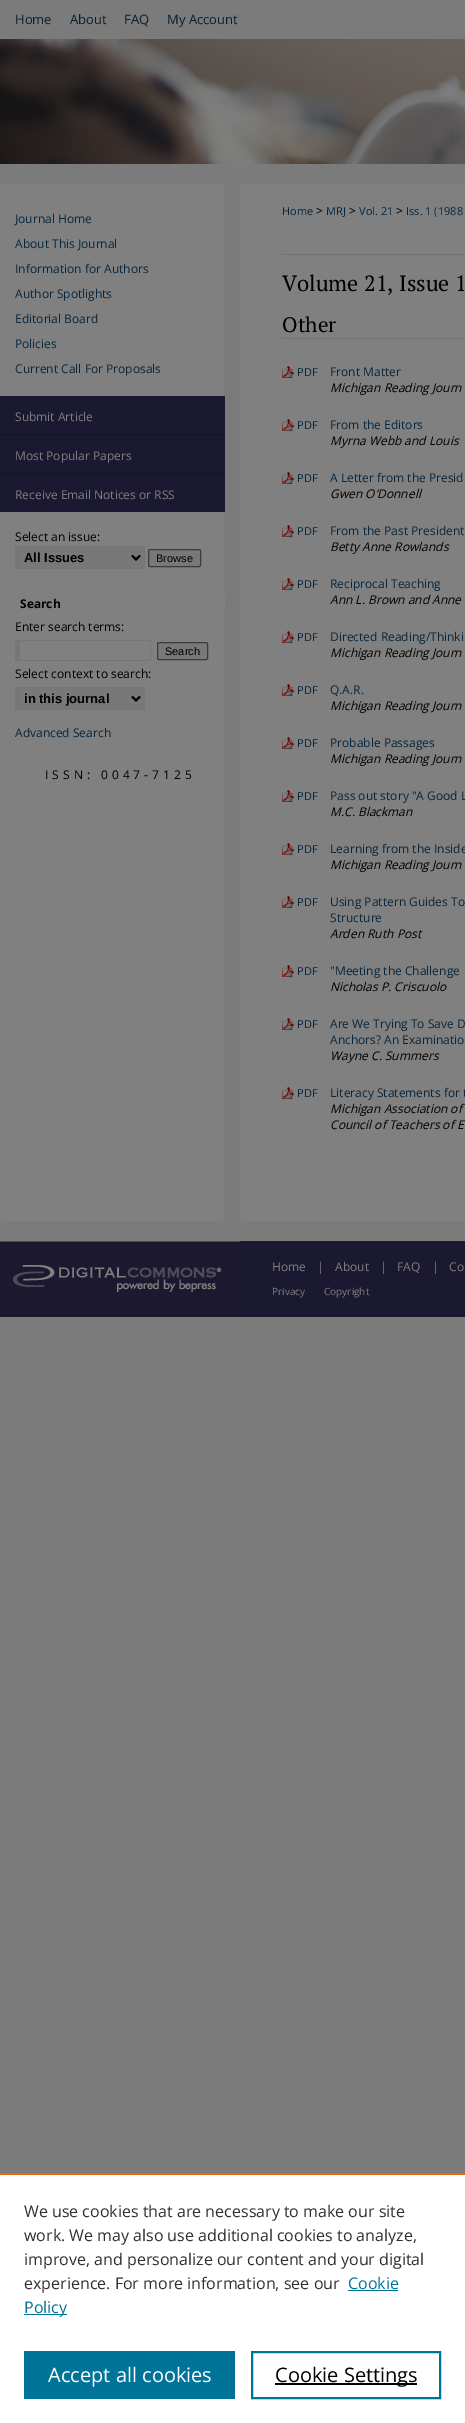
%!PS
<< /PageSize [465 2423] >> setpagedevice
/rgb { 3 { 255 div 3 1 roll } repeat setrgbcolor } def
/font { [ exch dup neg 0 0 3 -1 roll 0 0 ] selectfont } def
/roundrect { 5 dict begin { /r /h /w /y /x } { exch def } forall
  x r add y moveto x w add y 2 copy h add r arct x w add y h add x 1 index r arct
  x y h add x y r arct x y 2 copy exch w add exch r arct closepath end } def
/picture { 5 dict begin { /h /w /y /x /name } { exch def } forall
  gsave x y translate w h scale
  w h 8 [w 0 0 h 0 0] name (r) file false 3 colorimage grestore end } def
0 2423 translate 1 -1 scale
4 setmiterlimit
123 123 123 rgb
0 0 465 2423 rectfill
(img/1.rgb) 0 39 465 125 picture
(img/2.rgb) 0 184 465 1037 picture
[
  [0 396 225 38 27 25 49]
  [224 395 1 1 128 128 128]
  [0 434 225 1 22 19 44]
  [0 435 225 38 27 25 49]
  [0 473 225 1 22 19 44]
  [0 474 225 38 27 25 49]
  [20 547 124 21 120 120 120]
  [15 546 130 1 118 118 118]
  [144 546 1 23 118 118 118]
  [15 568 130 1 118 118 118]
  [15 546 5 23 118 118 118]
] { aload pop rgb rectfill } forall
0 0 0 rgb
2 setlinewidth
132 555.5 moveto 136 559.5 lineto 140 555.5 lineto stroke
120 120 120 rgb
148.5 549.5 52 17 1.5 roundrect gsave fill grestore
59 59 59 rgb
1 setlinewidth
stroke
[
  [224 595 1 17 128 128 128]
  [15 640 136 1 118 118 118]
  [150 640 1 21 118 118 118]
  [15 660 136 1 118 118 118]
  [15 640 5 21 118 118 118]
] { aload pop rgb rectfill } forall
120 120 120 rgb
157.5 642.5 50 17 1.5 roundrect gsave fill grestore
59 59 59 rgb
stroke
[
  [20 688 124 21 120 120 120]
  [15 687 130 1 118 118 118]
  [144 687 1 23 118 118 118]
  [15 709 130 1 118 118 118]
  [15 687 5 23 118 118 118]
] { aload pop rgb rectfill } forall
0 0 0 rgb
2 setlinewidth
132 696.5 moveto 136 700.5 lineto 140 696.5 lineto stroke
114 114 114 rgb
282 254 183 1 rectfill
282 338 183 1 rectfill
(img/3.rgb) 282 366 12 12 picture
(img/3.rgb) 282 419 12 12 picture
(img/3.rgb) 282 472 12 12 picture
(img/3.rgb) 282 525 12 12 picture
(img/3.rgb) 282 578 12 12 picture
(img/3.rgb) 282 631 12 12 picture
(img/3.rgb) 282 684 12 12 picture
(img/3.rgb) 282 737 12 12 picture
(img/3.rgb) 282 790 12 12 picture
(img/3.rgb) 282 843 12 12 picture
(img/3.rgb) 282 896 12 12 picture
(img/3.rgb) 282 965 12 12 picture
(img/3.rgb) 282 1018 12 12 picture
(img/3.rgb) 282 1087 12 12 picture
27 25 49 rgb
240 1241 225 76 rectfill
(img/4.rgb) 0 1241 240 76 picture
[
  [0 2175 465 248 255 255 255]
  [0 2173 465 2 235 101 0]
  [348 2290 50 1 0 115 152]
  [24 2314 43 1 0 115 152]
  [24 2351 211 48 0 115 152]
] { aload pop rgb rectfill } forall
252 2352 188 46 rectstroke
0 0 0 rgb
275 2383 142 2 rectfill
/OpenSans-Regular 13 font
6 31 49 rgb
[
  [(Home) 15 24]
  [(About) 70 24]
  [(FAQ) 124 24]
  [(My Account) 167 24]
] { aload pop moveto show } forall
/OpenSans-Regular 12 font
8 39 62 rgb
[
  [(Journal Home) 15 223]
  [(About This Journal) 15 248]
  [(Information for Authors) 15 273]
  [(Author Spotlights) 15 298]
  [(Editorial Board) 15 323]
  [(Policies) 15 348]
  [(Current Call For Proposals) 15 373]
] { aload pop moveto show } forall
128 128 128 rgb
[
  [(Submit Article) 15 421]
  [(Most Popular Papers) 15 460]
  [(Receive Email Notices or RSS) 15 499]
] { aload pop moveto show } forall
0 0 0 rgb
15 541 moveto (Select an issue:) show
/LiberationSans-Bold 13 font
24 562 moveto (All Issues) show
/LiberationSans-Regular 11 font
156 562 moveto (Browse) show
/OpenSans-Bold 12 font
20 608 moveto (Search) show
/OpenSans-Regular 12 font
15 631 moveto (Enter search terms:) show
/LiberationSans-Regular 11 font
165 655 moveto (Search) show
/OpenSans-Regular 12 font
15 678 moveto (Select context to search:) show
/LiberationSans-Bold 13 font
24 703 moveto (in this journal) show
/OpenSans-Regular 12 font
8 39 62 rgb
15 737 moveto (Advanced Search) show
0 0 0 rgb
45 779 moveto 4 0 (ISSN: 0047-7125) ashow
/OpenSans-Regular 11 font
8 39 62 rgb
282 215 moveto (Home) show
/OpenSans-Regular 12 font
0 0 0 rgb
316 215 moveto (>) show
/OpenSans-Regular 11 font
8 39 62 rgb
326 215 moveto (MRJ) show
/OpenSans-Regular 12 font
0 0 0 rgb
349 215 moveto (>) show
/OpenSans-Regular 11 font
8 39 62 rgb
359 215 moveto (Vol. 21) show
/OpenSans-Regular 12 font
0 0 0 rgb
396 215 moveto (>) show
/OpenSans-Regular 11 font
8 39 62 rgb
406 215 moveto (Iss. 1 \(1988) show
/PTSerif-Regular 22 font
0 0 0 rgb
282 291 moveto (Volume 21, Issue 1) show
/PTSerif-Regular 21 font
282 332 moveto (Other) show
/OpenSans-Regular 11 font
8 39 62 rgb
297 376 moveto (PDF) show
/OpenSans-Regular 12 font
330 376 moveto (Front Matter) show
/OpenSans-Italic 12 font
0 0 0 rgb
330 392 moveto (Michigan Reading Journ) show
/OpenSans-Regular 11 font
8 39 62 rgb
297 429 moveto (PDF) show
/OpenSans-Regular 12 font
330 429 moveto (From the Editors) show
/OpenSans-Italic 12 font
0 0 0 rgb
330 445 moveto (Myrna Webb and Louis) show
/OpenSans-Regular 11 font
8 39 62 rgb
297 482 moveto (PDF) show
/OpenSans-Regular 12 font
330 482 moveto (A Letter from the Presid) show
/OpenSans-Italic 12 font
0 0 0 rgb
330 498 moveto (Gwen O'Donnell) show
/OpenSans-Regular 11 font
8 39 62 rgb
297 535 moveto (PDF) show
/OpenSans-Regular 12 font
330 535 moveto (From the Past President) show
/OpenSans-Italic 12 font
0 0 0 rgb
330 551 moveto (Betty Anne Rowlands) show
/OpenSans-Regular 11 font
8 39 62 rgb
297 588 moveto (PDF) show
/OpenSans-Regular 12 font
330 588 moveto (Reciprocal Teaching) show
/OpenSans-Italic 12 font
0 0 0 rgb
330 604 moveto (Ann L. Brown and Anne) show
/OpenSans-Regular 11 font
8 39 62 rgb
297 641 moveto (PDF) show
/OpenSans-Regular 12 font
330 641 moveto (Directed Reading/Thinki) show
/OpenSans-Italic 12 font
0 0 0 rgb
330 657 moveto (Michigan Reading Journ) show
/OpenSans-Regular 11 font
8 39 62 rgb
297 694 moveto (PDF) show
/OpenSans-Regular 12 font
330 694 moveto (Q.A.R.) show
/OpenSans-Italic 12 font
0 0 0 rgb
330 710 moveto (Michigan Reading Journ) show
/OpenSans-Regular 11 font
8 39 62 rgb
297 747 moveto (PDF) show
/OpenSans-Regular 12 font
330 747 moveto (Probable Passages) show
/OpenSans-Italic 12 font
0 0 0 rgb
330 763 moveto (Michigan Reading Journ) show
/OpenSans-Regular 11 font
8 39 62 rgb
297 800 moveto (PDF) show
/OpenSans-Regular 12 font
330 800 moveto (Pass out story "A Good L) show
/OpenSans-Italic 12 font
0 0 0 rgb
330 816 moveto (M.C. Blackman) show
/OpenSans-Regular 11 font
8 39 62 rgb
297 853 moveto (PDF) show
/OpenSans-Regular 12 font
330 853 moveto (Learning from the Inside) show
/OpenSans-Italic 12 font
0 0 0 rgb
330 869 moveto (Michigan Reading Journ) show
/OpenSans-Regular 11 font
8 39 62 rgb
297 906 moveto (PDF) show
/OpenSans-Regular 12 font
330 906 moveto (Using Pattern Guides To) show
330 922 moveto (Structure) show
/OpenSans-Italic 12 font
0 0 0 rgb
330 938 moveto (Arden Ruth Post) show
/OpenSans-Regular 11 font
8 39 62 rgb
297 975 moveto (PDF) show
/OpenSans-Regular 12 font
330 975 moveto ("Meeting the Challenge) show
/OpenSans-Italic 12 font
0 0 0 rgb
330 991 moveto (Nicholas P. Criscuolo) show
/OpenSans-Regular 11 font
8 39 62 rgb
297 1028 moveto (PDF) show
/OpenSans-Regular 12 font
330 1028 moveto (Are We Trying To Save D) show
330 1044 moveto (Anchors? An Examinatio) show
/OpenSans-Italic 12 font
0 0 0 rgb
330 1060 moveto (Wayne C. Summers) show
/OpenSans-Regular 11 font
8 39 62 rgb
297 1097 moveto (PDF) show
/OpenSans-Regular 12 font
330 1097 moveto (Literacy Statements for t) show
/OpenSans-Italic 12 font
0 0 0 rgb
330 1113 moveto (Michigan Association of) show
330 1129 moveto (Council of Teachers of E) show
/OpenSans-Regular 12 font
128 128 128 rgb
[
  [(Home) 272 1271]
  [(|) 317 1271]
  [(About) 335 1271]
  [(|) 380 1271]
  [(FAQ) 397 1271]
  [(|) 432 1271]
  [(Co) 449 1271]
] { aload pop moveto show } forall
/OpenSans-Regular 10 font
272 1295 moveto (Privacy) show
324 1295 moveto (Copyright) show
/OpenSans-Regular 16 font
46 46 46 rgb
[
  [(We use cookies that are necessary to make our site) 24 2217]
  [(work. We may also use additional cookies to analyze,) 24 2241]
  [(improve, and personalize our content and your digital) 24 2265]
  [(experience. For more information, see our) 24 2289]
] { aload pop moveto show } forall
0 115 152 rgb
348 2289 moveto (Cookie) show
24 2313 moveto (Policy) show
/OpenSans-Regular 20 font
255 255 255 rgb
48 2382 moveto (Accept all cookies) show
0 0 0 rgb
275 2382 moveto (Cookie Settings) show
showpage
